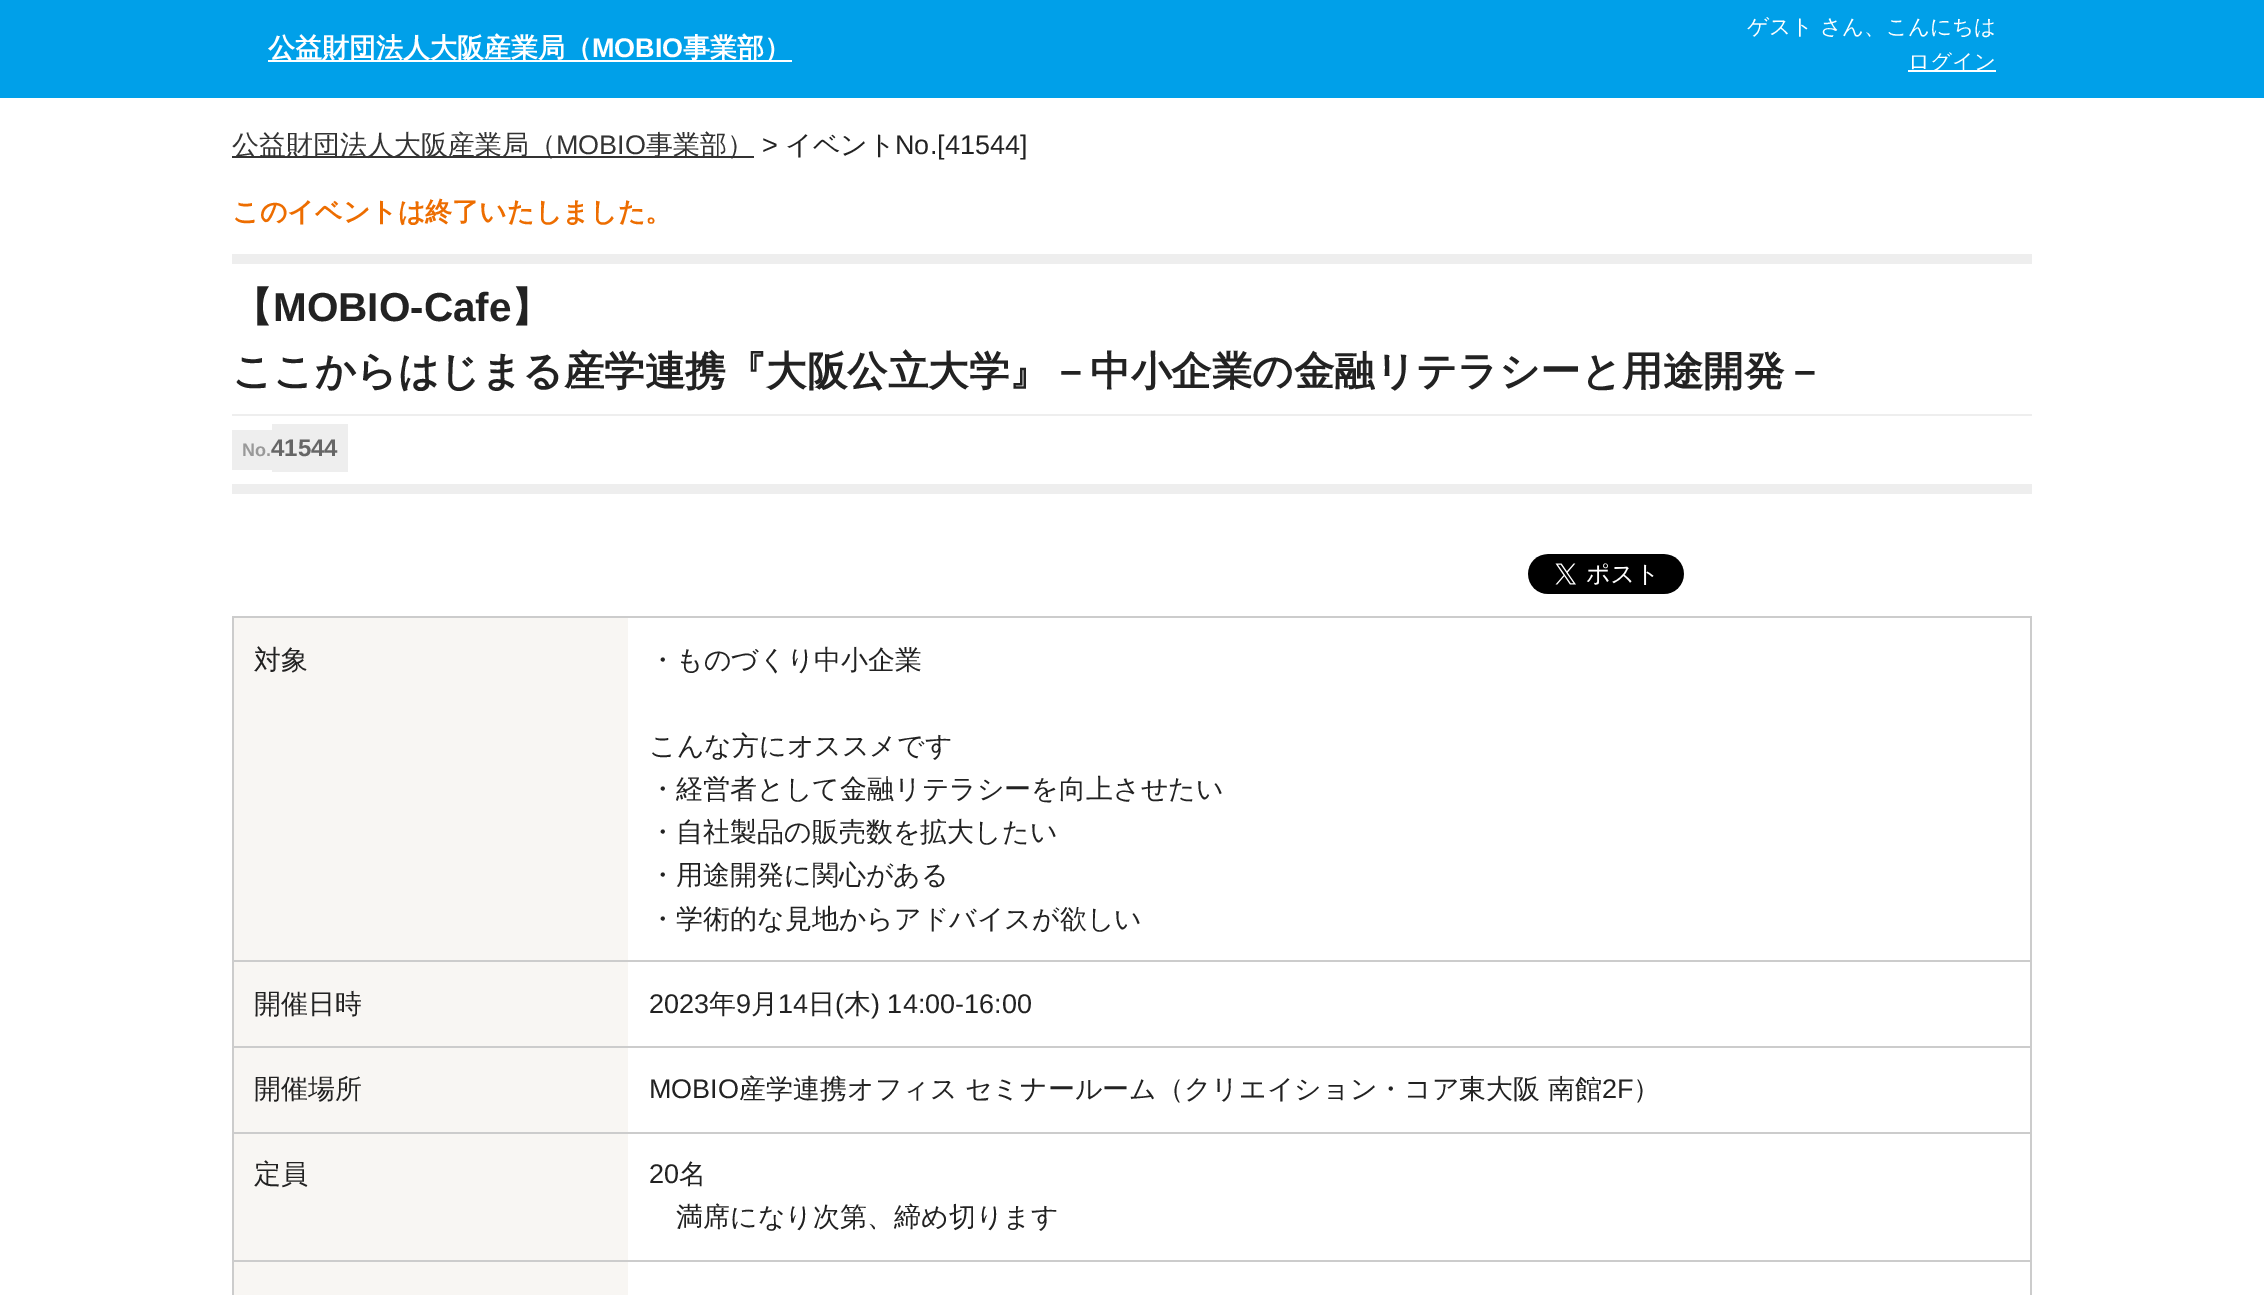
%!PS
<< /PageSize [2264 1295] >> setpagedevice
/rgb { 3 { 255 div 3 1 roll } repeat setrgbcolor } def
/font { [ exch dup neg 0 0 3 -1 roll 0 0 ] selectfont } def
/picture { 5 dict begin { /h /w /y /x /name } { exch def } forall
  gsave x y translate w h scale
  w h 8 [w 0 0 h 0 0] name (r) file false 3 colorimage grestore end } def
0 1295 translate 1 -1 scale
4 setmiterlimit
255 255 255 rgb
0 0 2264 1295 rectfill
[
  [0 0 2264 98 0 160 233]
  [268 60 524 2 255 255 255]
  [1908 70 88 2 255 255 255]
  [232 156 522 2 51 51 51]
  [232 484 1800 10 238 238 238]
  [232 254 1800 10 238 238 238]
  [232 414 1800 2 238 238 238]
  [232 430 40 40 238 238 238]
  [272 424 76 48 238 238 238]
] { aload pop rgb rectfill } forall
(img/1.rgb) 1528 554 156 40 picture
[
  [232 616 1800 2 204 204 204]
  [2030 616 2 679 204 204 204]
  [232 616 2 679 204 204 204]
  [234 618 394 342 248 246 243]
  [234 962 394 84 248 246 243]
  [232 960 1800 2 204 204 204]
  [234 1048 394 84 248 246 243]
  [232 1046 1800 2 204 204 204]
  [234 1134 394 126 248 246 243]
  [232 1132 1800 2 204 204 204]
  [232 1260 1800 2 204 204 204]
  [234 1262 394 33 248 246 243]
] { aload pop rgb rectfill } forall
/WenQuanYiZenHei-Bold 27 font
255 255 255 rgb
268 57 moveto (公益財団法人大阪産業局（) show
/LiberationSans-Bold 27 font
592 57 moveto (MOBIO) show
/WenQuanYiZenHei-Bold 27 font
683 57 moveto (事業部）) show
/WenQuanYiZenHei-Medium 21.6 font
1747 34 moveto (ゲスト さん、こんにちは) show
1908 69 moveto (ログイン) show
/WenQuanYiZenHei-Medium 27 font
51 51 51 rgb
232 154 moveto (公益財団法人大阪産業局（) show
/LiberationSans-Regular 27 font
556 154 moveto (MOBIO) show
/WenQuanYiZenHei-Medium 27 font
646 154 moveto (事業部）) show
/LiberationSans-Regular 27 font
34 34 34 rgb
762 154 moveto (>) show
/WenQuanYiZenHei-Medium 27 font
785 154 moveto (イベント) show
/LiberationSans-Regular 27 font
895 154 moveto (No.[41544]) show
/WenQuanYiZenHei-Bold 27 font
237 109 0 rgb
232 221 moveto (このイベントは終了いたしました。) show
/WenQuanYiZenHei-Bold 40.5 font
34 34 34 rgb
232 321 moveto (【) show
/LiberationSans-Bold 40.5 font
273 321 moveto (MOBIO-Cafe) show
/WenQuanYiZenHei-Bold 40.5 font
511 321 moveto (】) show
232 385 moveto (ここからはじまる産学連携『大阪公立大学』－中小企業の金融リテラシーと用途開発－) show
/LiberationSans-Bold 18 font
153 153 153 rgb
242 456 moveto (No.) show
/LiberationSans-Bold 24 font
102 102 102 rgb
271 456 moveto (41544) show
/WenQuanYiZenHei-Medium 27 font
34 34 34 rgb
[
  [(対象) 254 669]
  [(・ものづくり中小企業) 649 669]
  [(こんな方にオススメです) 649 755]
  [(・経営者として金融リテラシーを向上させたい) 649 798]
  [(・自社製品の販売数を拡大したい) 649 841]
  [(・用途開発に関心がある) 649 884]
  [(・学術的な見地からアドバイスが欲しい) 649 928]
  [(開催日時) 254 1013]
] { aload pop moveto show } forall
/LiberationSans-Regular 27 font
649 1013 moveto (2023) show
/WenQuanYiZenHei-Medium 27 font
709 1013 moveto (年) show
/LiberationSans-Regular 27 font
736 1013 moveto (9) show
/WenQuanYiZenHei-Medium 27 font
751 1013 moveto (月) show
/LiberationSans-Regular 27 font
778 1013 moveto (14) show
/WenQuanYiZenHei-Medium 27 font
808 1013 moveto (日) show
/LiberationSans-Regular 27 font
835 1013 moveto (\() show
/WenQuanYiZenHei-Medium 27 font
844 1013 moveto (木) show
/LiberationSans-Regular 27 font
871 1013 moveto (\) 14:00-16:00) show
/WenQuanYiZenHei-Medium 27 font
254 1098 moveto (開催場所) show
/LiberationSans-Regular 27 font
649 1098 moveto (MOBIO) show
/WenQuanYiZenHei-Medium 27 font
739 1098 moveto -1 0 32 (産学連携オフィス セミナールーム（クリエイション・コア東大阪 南館) widthshow
/LiberationSans-Regular 27 font
1602 1098 moveto (2F) show
/WenQuanYiZenHei-Medium 27 font
1633 1098 moveto (）) show
254 1183 moveto (定員) show
/LiberationSans-Regular 27 font
649 1183 moveto (20) show
/WenQuanYiZenHei-Medium 27 font
679 1183 moveto (名) show
676 1226 moveto (満席になり次第、締め切ります) show
showpage
